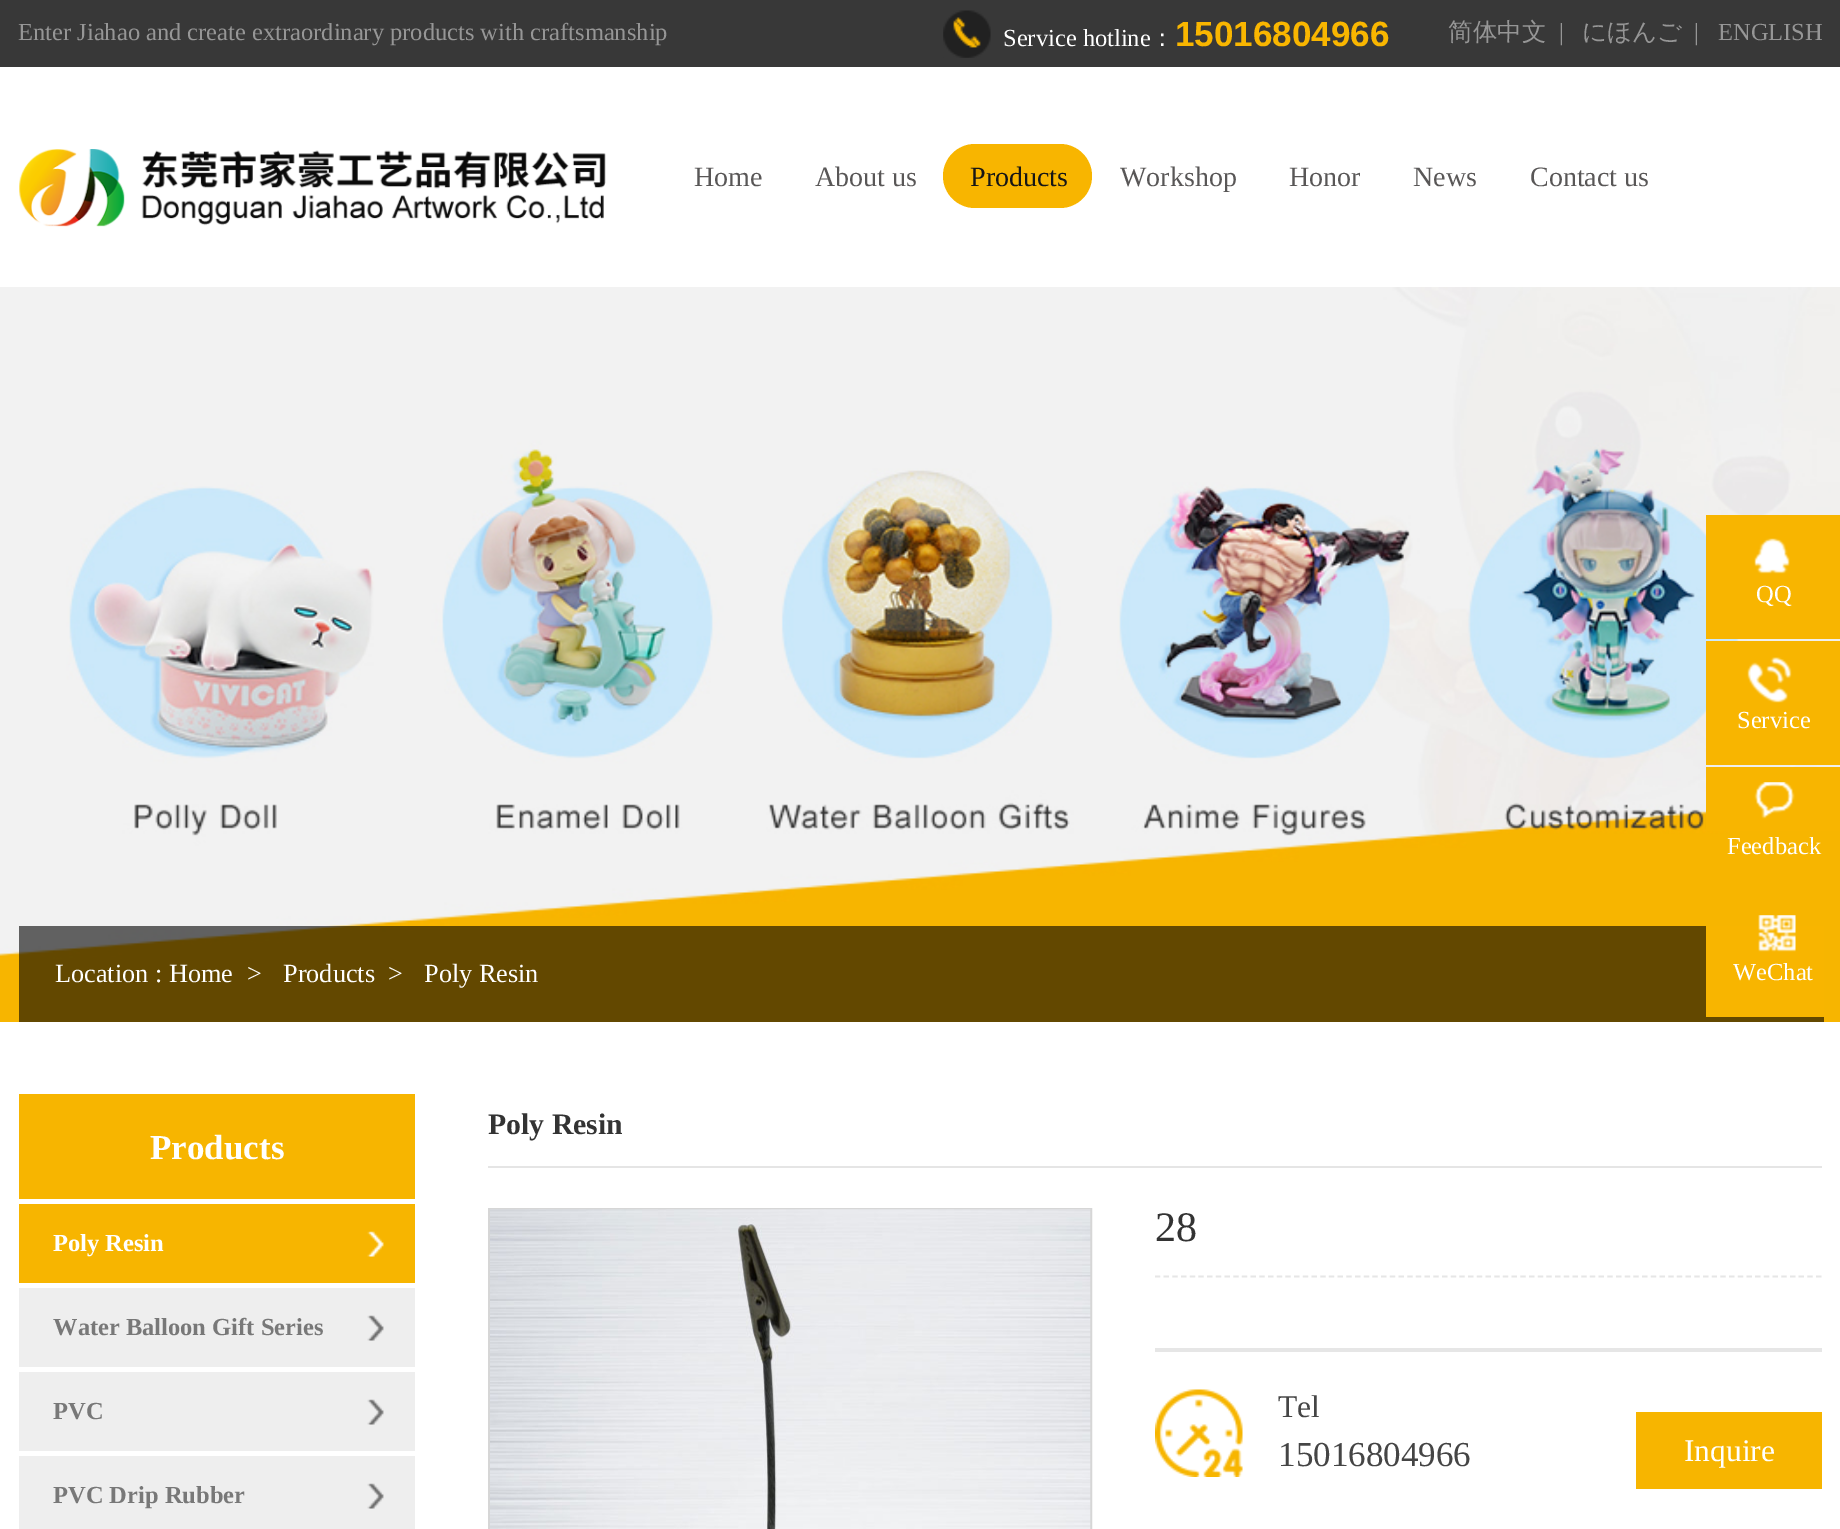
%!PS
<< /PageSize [1840 1529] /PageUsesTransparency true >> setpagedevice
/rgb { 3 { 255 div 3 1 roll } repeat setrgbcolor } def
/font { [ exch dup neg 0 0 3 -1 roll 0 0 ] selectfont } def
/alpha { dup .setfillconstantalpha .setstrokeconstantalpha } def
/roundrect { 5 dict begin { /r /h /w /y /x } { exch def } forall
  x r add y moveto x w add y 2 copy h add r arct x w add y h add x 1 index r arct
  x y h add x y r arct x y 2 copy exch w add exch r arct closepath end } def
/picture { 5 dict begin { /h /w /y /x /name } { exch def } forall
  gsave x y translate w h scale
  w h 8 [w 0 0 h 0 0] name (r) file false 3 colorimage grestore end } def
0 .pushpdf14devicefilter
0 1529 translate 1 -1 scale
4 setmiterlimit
255 255 255 rgb
0 0 1840 1529 rectfill
56 56 56 rgb
0 0 1840 67 rectfill
(img/1.rgb) 943 10 48 48 picture
(img/2.rgb) 19 149 587 78 picture
248 181 0 rgb
943 144 149 64 32 roundrect fill
(img/3.rgb) 0 287 1840 735 picture
0.6 alpha
0 0 0 rgb
19 926 1805 96 rectfill
1 alpha
248 181 0 rgb
1706 515 134 124 rectfill
(img/4.rgb) 1754 538 36 36 picture
1706 641 134 124 rectfill
(img/5.rgb) 1747 657 45 46 picture
1706 767 134 64 rectfill
(img/6.rgb) 1754 782 41 37 picture
1706 926 118 91 rectfill
(img/7.rgb) 1758 915 38 37 picture
247 181 0 rgb
19 1094 396 105 rectfill
19 1204 396 79 rectfill
(img/8.rgb) 367 1231 17 26 picture
238 238 238 rgb
19 1288 396 79 rectfill
(img/9.rgb) 367 1315 17 26 picture
19 1372 396 79 rectfill
(img/9.rgb) 367 1399 17 26 picture
19 1456 396 73 rectfill
(img/9.rgb) 367 1483 17 26 picture
229 229 229 rgb
488 1166 1334 2 rectfill
214 214 214 rgb
2 setlinewidth
489 1209 602 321 rectstroke
(img/10.rgb) 490 1209 601 320 picture
230 230 230 rgb
1.8 setlinewidth
[5.25 3.45] 0 setdash
1155 1276.5 moveto 1822 1276.5 lineto stroke
1155 1348 667 4 rectfill
(img/11.rgb) 1155 1389 88 88 picture
247 181 0 rgb
1636 1412 186 77 rectfill
/LiberationSerif-Regular 24.5 font
150 150 150 rgb
18 40 moveto (Enter Jiahao and create extraordinary products with craftsmanship) show
255 255 255 rgb
1003 46 moveto (Service hotline) show
/WenQuanYiZenHei-Medium 24.5 font
1150 46 moveto (：) show
/LiberationSans-Bold 35 font
249 182 0 rgb
1175 46 moveto (15016804966) show
/WenQuanYiZenHei-Medium 24.5 font
150 150 150 rgb
1448 40 moveto (简体中文) show
/LiberationSerif-Regular 24.5 font
1559 40 moveto (|) show
/WenQuanYiZenHei-Medium 24.5 font
1582 40 moveto (にほんご) show
/LiberationSerif-Regular 24.5 font
1694 40 moveto (|) show
1718 40 moveto (ENGLISH) show
/LiberationSerif-Regular 28 font
89 87 87 rgb
694 186 moveto (Home) show
815 186 moveto (About us) show
22 22 22 rgb
970 186 moveto (Products) show
89 87 87 rgb
[
  [(Workshop) 1120 186]
  [(Honor) 1289 186]
  [(News) 1413 186]
  [(Contact us) 1530 186]
] { aload pop moveto show } forall
/LiberationSerif-Regular 26.25 font
255 255 255 rgb
[
  [(Location : Home) 55 982]
  [(>) 247 982]
  [(Products) 283 982]
  [(>) 388 982]
  [(Poly Resin) 424 982]
] { aload pop moveto show } forall
/LiberationSerif-Regular 24.5 font
[
  [(QQ) 1756 602]
  [(Service) 1737 728]
  [(Feedback) 1727 854]
  [(WeChat) 1733 980]
] { aload pop moveto show } forall
/LiberationSerif-Bold 35 font
150 1159 moveto (Products) show
/LiberationSerif-Bold 24.5 font
53 1251 moveto (Poly Resin) show
120 120 120 rgb
[
  [(Water Balloon Gift Series) 53 1335]
  [(PVC) 53 1419]
  [(PVC Drip Rubber) 53 1503]
] { aload pop moveto show } forall
/LiberationSerif-Bold 29.75 font
51 51 51 rgb
488 1134 moveto (Poly Resin) show
/LiberationSerif-Regular 42 font
1155 1241 moveto (28) show
/LiberationSerif-Regular 31.5 font
69 69 69 rgb
1278 1417 moveto (Tel) show
/LiberationSerif-Regular 35 font
1278 1466 moveto (15016804966) show
/LiberationSerif-Regular 31.5 font
255 255 255 rgb
1684 1461 moveto (Inquire) show
.poppdf14devicefilter showpage
